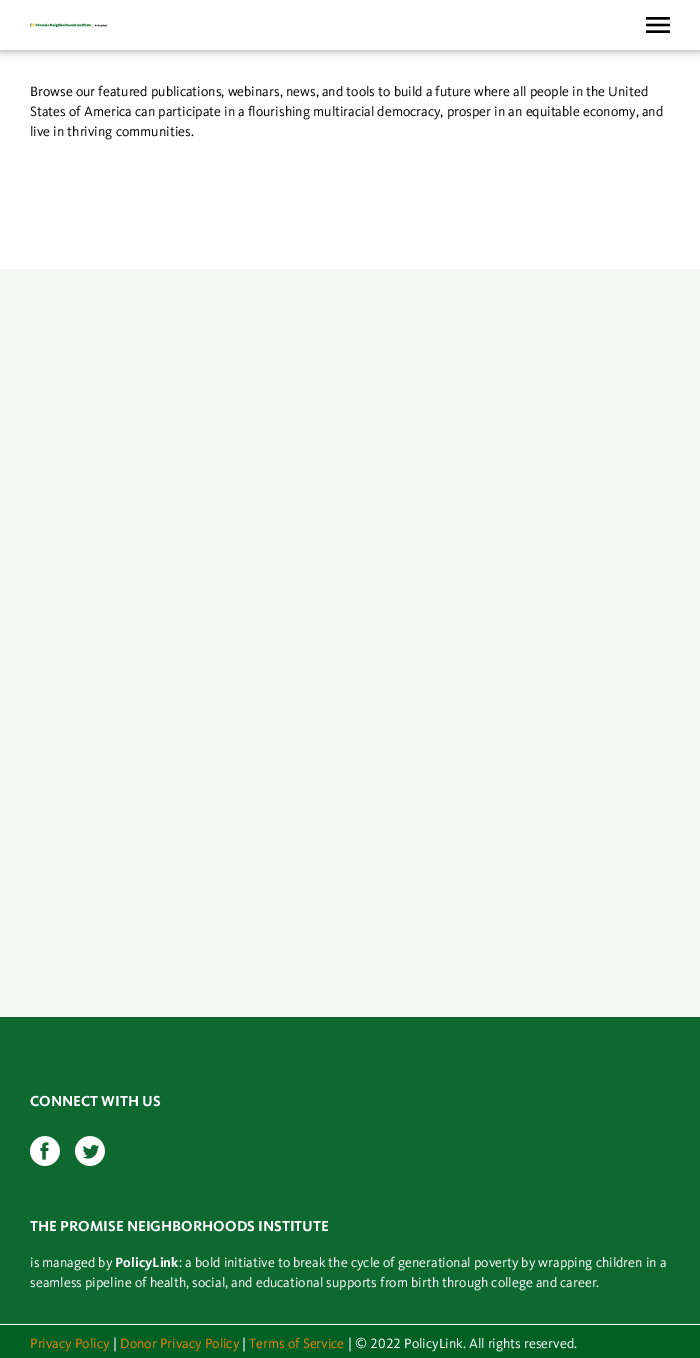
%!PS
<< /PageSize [700 1358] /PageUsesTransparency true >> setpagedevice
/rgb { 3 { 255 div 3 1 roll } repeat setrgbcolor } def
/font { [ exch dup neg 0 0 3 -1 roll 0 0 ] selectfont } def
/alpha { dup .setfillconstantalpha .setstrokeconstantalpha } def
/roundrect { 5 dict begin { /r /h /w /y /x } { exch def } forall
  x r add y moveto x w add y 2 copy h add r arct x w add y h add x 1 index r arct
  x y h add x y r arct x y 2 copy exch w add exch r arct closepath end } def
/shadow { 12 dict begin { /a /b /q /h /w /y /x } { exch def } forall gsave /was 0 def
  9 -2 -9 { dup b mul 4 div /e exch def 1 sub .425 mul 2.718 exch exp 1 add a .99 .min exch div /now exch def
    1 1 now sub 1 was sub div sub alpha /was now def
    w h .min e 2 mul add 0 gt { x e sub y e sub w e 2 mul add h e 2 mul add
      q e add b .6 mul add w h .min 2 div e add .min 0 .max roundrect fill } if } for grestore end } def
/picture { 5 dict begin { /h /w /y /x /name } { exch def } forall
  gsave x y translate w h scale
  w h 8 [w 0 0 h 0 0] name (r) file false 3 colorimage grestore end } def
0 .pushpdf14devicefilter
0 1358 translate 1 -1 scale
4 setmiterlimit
243 248 245 rgb
0 0 700 1358 rectfill
255 255 255 rgb
0 50 700 93 rectfill
0 0 0 rgb
0 2 700 50 0 5 0.12 shadow
0 2 700 50 0 2.5 0.16 shadow
255 255 255 rgb
0 0 700 50 rectfill
(img/1.rgb) 30 23 77 4 picture
(img/2.rgb) 646 17 24 16 picture
[
  [0 143 700 126 255 255 255]
  [0 1325 700 33 1 97 37]
  [0 1017 700 307 14 105 48]
] { aload pop rgb rectfill } forall
(img/3.rgb) 30 1136 30 30 picture
(img/4.rgb) 75 1136 30 30 picture
255 255 255 rgb
0 1324 700 1 rectfill
/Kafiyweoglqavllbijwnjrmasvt-Regular 14 font
0 0 0 rgb
[
  [(Browse our featured publications, webinars, news, and tools to build a future where all people in the United) 30 96]
  [(States of America can participate in a flourishing multiracial democracy, prosper in an equitable economy, and) 30 116]
  [(live in thriving communities.) 30 136]
] { aload pop moveto show } forall
/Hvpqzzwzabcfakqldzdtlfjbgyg-Bold 15 font
255 255 255 rgb
30 1106 moveto (CONNECT WITH US) show
30 1231 moveto (THE PROMISE NEIGHBORHOODS INSTITUTE) show
/Kafiyweoglqavllbijwnjrmasvt-Regular 14 font
30 1267 moveto (is managed by) show
/Hvpqzzwzabcfakqldzdtlfjbgyg-Bold 14 font
115 1267 moveto (PolicyLink) show
/Kafiyweoglqavllbijwnjrmasvt-Regular 14 font
179 1267 moveto (: a bold initiative to break the cycle of generational poverty by wrapping children in a) show
30 1287 moveto (seamless pipeline of health, social, and educational supports from birth through college and career.) show
228 131 18 rgb
30 1348 moveto (Privacy Policy) show
255 255 255 rgb
113 1348 moveto (|) show
228 131 18 rgb
120 1348 moveto (Donor Privacy Policy) show
255 255 255 rgb
242 1348 moveto (|) show
228 131 18 rgb
249 1348 moveto (Terms of Service) show
255 255 255 rgb
348 1348 moveto (| © 2022 PolicyLink. All rights reserved.) show
.poppdf14devicefilter showpage
